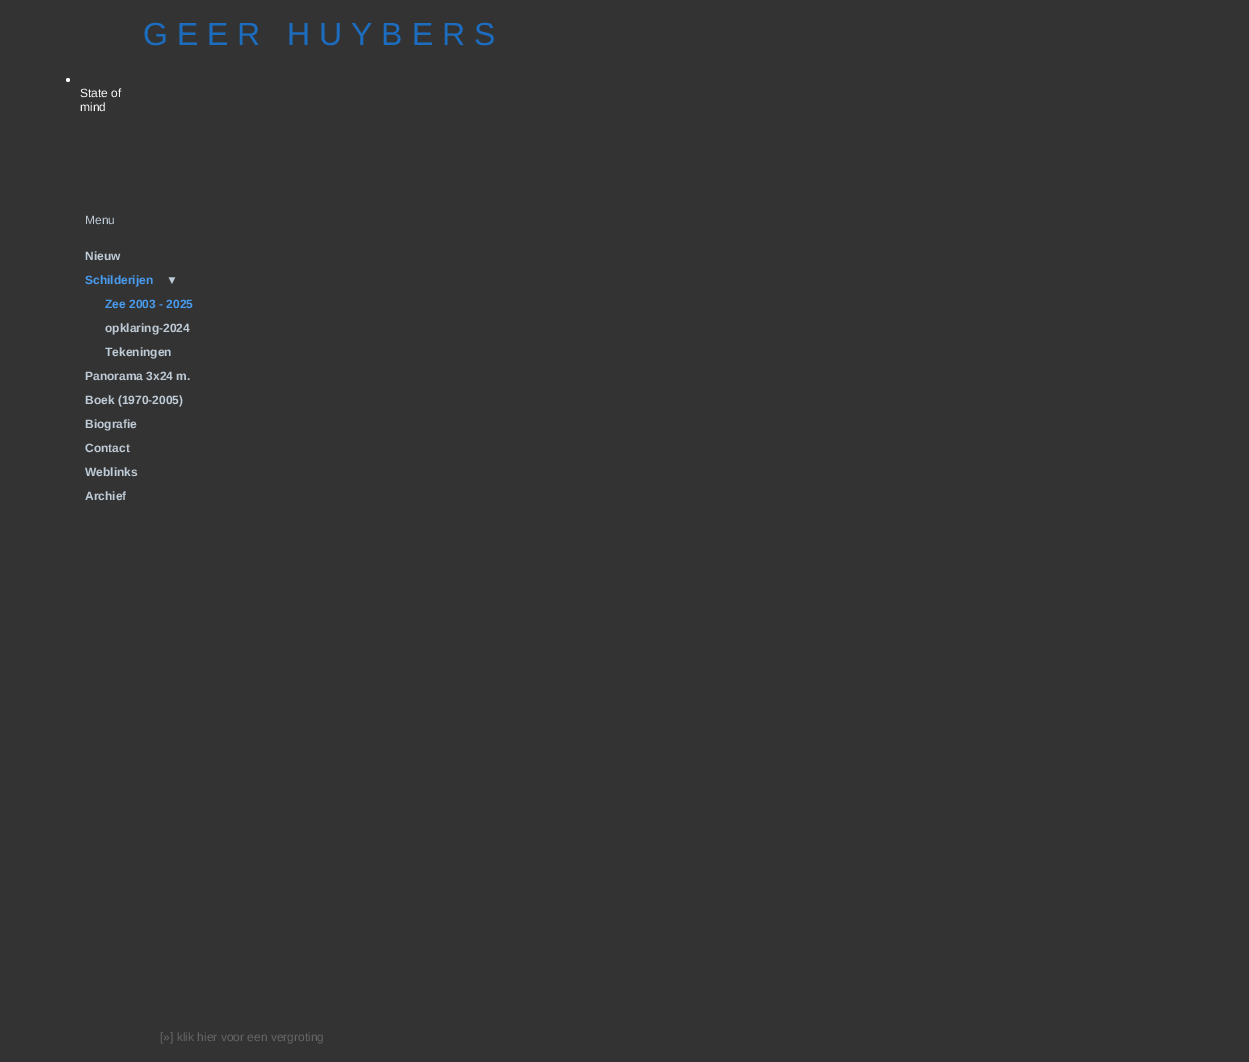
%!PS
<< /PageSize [1249 1062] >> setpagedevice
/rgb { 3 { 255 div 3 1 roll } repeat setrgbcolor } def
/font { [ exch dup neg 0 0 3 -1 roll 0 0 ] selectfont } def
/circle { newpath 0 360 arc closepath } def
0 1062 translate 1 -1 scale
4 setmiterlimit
51 51 51 rgb
0 0 1249 1062 rectfill
247 246 244 rgb
68 80 2 circle fill
/LiberationSans-Regular 32 font
28 109 192 rgb
143 45 moveto (G E E R   H U Y B E R S) show
/LiberationSans-Regular 12 font
247 246 244 rgb
80 97 moveto (State of) show
80 111 moveto (mind) show
191 203 214 rgb
85 224 moveto (Menu) show
/LiberationSans-Bold 12 font
85 260 moveto (Nieuw) show
72 155 239 rgb
85 284 moveto (Schilderijen) show
/LiberationSans-Regular 12 font
191 203 214 rgb
166 284 moveto (▼) show
/LiberationSans-Bold 12 font
72 155 239 rgb
105 308 moveto (Zee 2003 - 2025) show
191 203 214 rgb
[
  [(opklaring-2024) 105 332]
  [(Tekeningen) 105 356]
  [(Panorama 3x24 m.) 85 380]
  [(Boek \(1970-2005\)) 85 404]
  [(Biografie) 85 428]
  [(Contact) 85 452]
  [(Weblinks) 85 476]
  [(Archief) 85 500]
] { aload pop moveto show } forall
/LiberationSans-Regular 12 font
102 102 102 rgb
160 1041 moveto ([»] klik hier voor een vergroting) show
showpage
